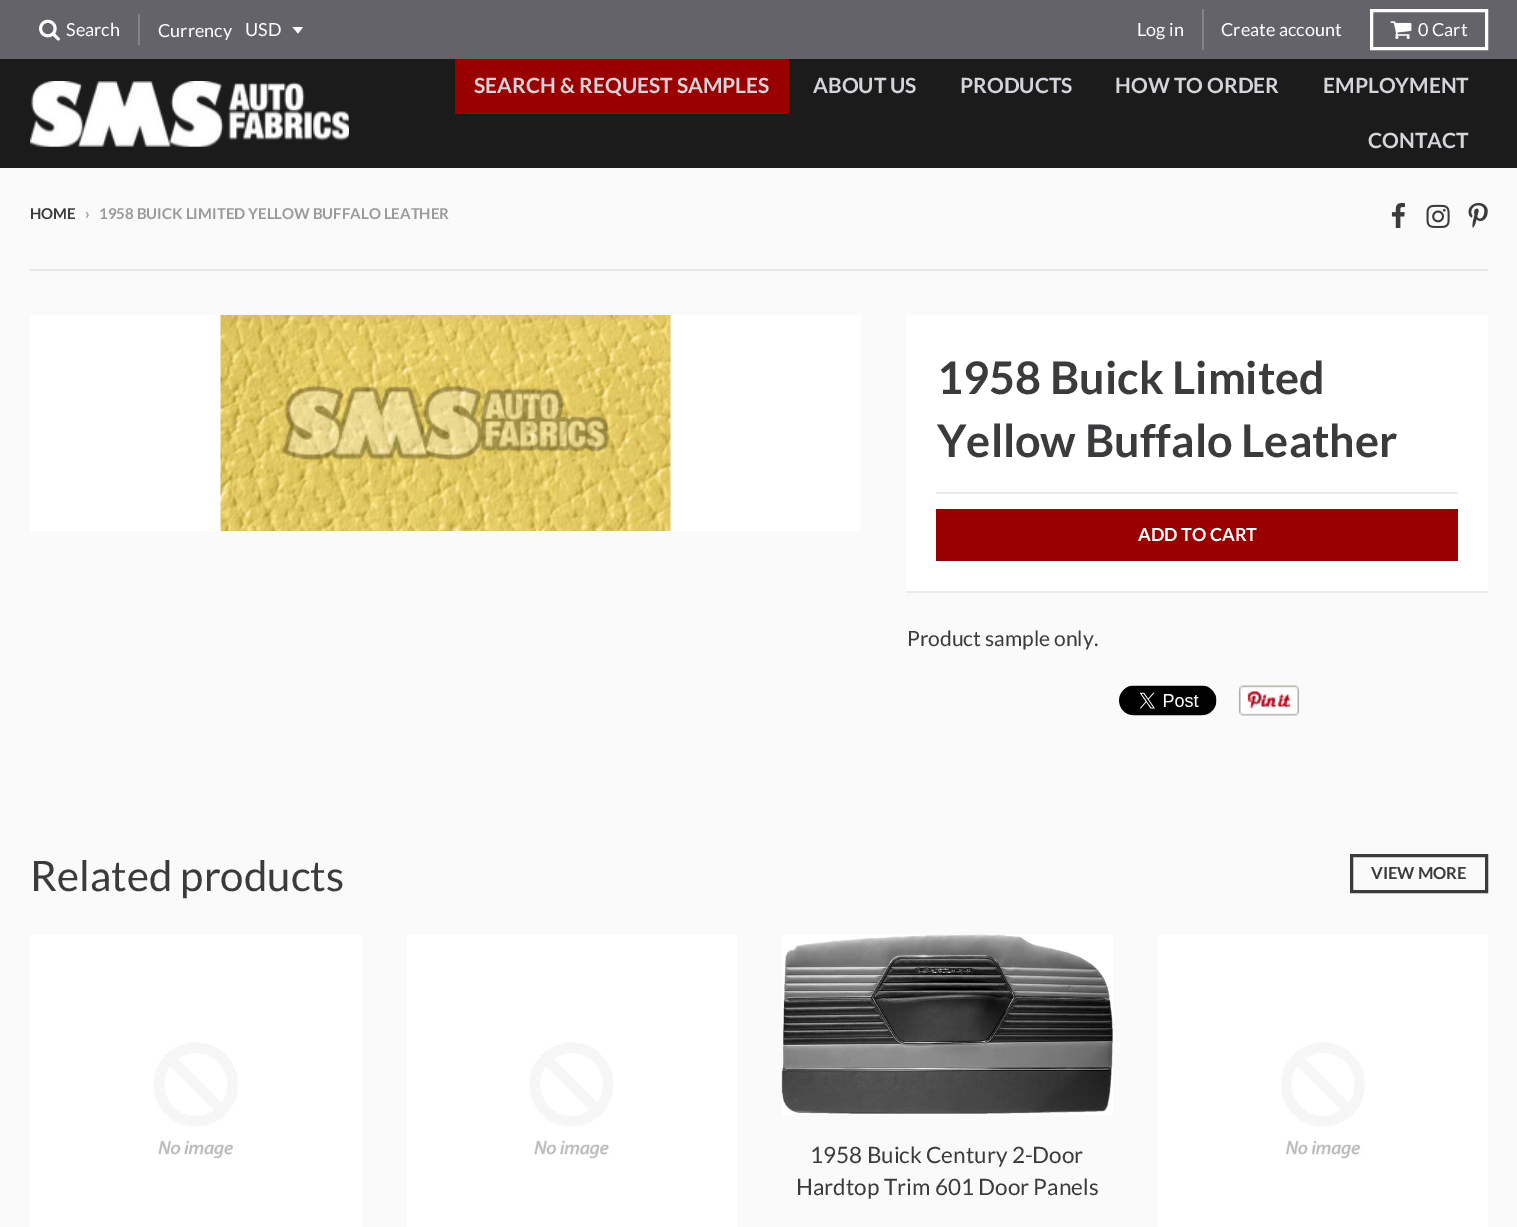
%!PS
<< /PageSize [1517 1227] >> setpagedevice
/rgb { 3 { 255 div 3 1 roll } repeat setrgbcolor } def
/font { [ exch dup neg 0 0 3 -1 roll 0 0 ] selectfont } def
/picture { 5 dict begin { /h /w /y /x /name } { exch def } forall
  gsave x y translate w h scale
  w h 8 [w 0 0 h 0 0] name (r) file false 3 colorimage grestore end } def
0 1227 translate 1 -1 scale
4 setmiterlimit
250 250 250 rgb
0 0 1517 1227 rectfill
101 99 106 rgb
0 0 1517 59 rectfill
(img/1.rgb) 39 19 21 22 picture
131 130 135 rgb
138 14 2 31 rectfill
255 255 255 rgb
292.5 27 moveto 298 33.5 lineto 303 27 lineto closepath fill
131 130 135 rgb
1202 9 2 41 rectfill
255 255 255 rgb
3 setlinewidth
1371.5 10.5 115 38 rectstroke
(img/2.rgb) 1390 21 22 18 picture
27 27 27 rgb
0 59 1517 109 rectfill
(img/3.rgb) 30 81 319 66 picture
153 0 0 rgb
455 59 334 55 rectfill
(img/4.rgb) 1391 202 14 26 picture
(img/5.rgb) 1426 204 24 24 picture
(img/6.rgb) 1468 202 20 26 picture
230 230 231 rgb
30 269 1458 2 rectfill
255 255 255 rgb
30 315 831 216 rectfill
(img/7.rgb) 220 315 451 216 picture
[
  [906 315 582 276 255 255 255]
  [906 591 582 2 235 235 235]
  [936 492 522 2 235 235 235]
  [936 509 522 52 153 0 0]
] { aload pop rgb rectfill } forall
(img/8.rgb) 1119 685 98 31 picture
(img/9.rgb) 1239 685 60 31 picture
59 58 61 rgb
1351.5 855.5 135 36 rectstroke
255 255 255 rgb
30 935 332 292 rectfill
(img/10.rgb) 153 1042 85 117 picture
407 935 330 292 rectfill
(img/11.rgb) 529 1042 84 117 picture
782 935 331 180 rectfill
(img/12.rgb) 781 934 332 180 picture
1158 935 330 292 rectfill
(img/13.rgb) 1281 1042 84 117 picture
/Lato-Regular 18 font
[
  [(Search) 66 36]
  [(Currency) 158 37]
  [(USD) 245 36]
  [(Log in) 1137 36]
  [(Create account) 1221 36]
  [(0 Cart) 1418 36]
] { aload pop moveto show } forall
/Lato-Bold 21 font
214 212 218 rgb
[
  [(SEARCH & REQUEST SAMPLES) 474 93]
  [(ABOUT US) 813 93]
  [(PRODUCTS) 960 93]
  [(HOW TO ORDER) 1115 93]
  [(EMPLOYMENT) 1323 93]
  [(CONTACT) 1368 148]
] { aload pop moveto show } forall
/Lato-Bold 15 font
59 58 61 rgb
30 219 moveto (HOME) show
154 154 155 rgb
85 219 moveto (›) show
99 219 moveto (1958 BUICK LIMITED YELLOW BUFFALO LEATHER) show
/Lato-Bold 45 font
59 58 61 rgb
937 394 moveto (1958 Buick Limited) show
937 457 moveto (Yellow Buffalo Leather) show
/Lato-Bold 18 font
255 255 255 rgb
1138 541 moveto (ADD TO CART) show
/Lato-Regular 21 font
59 58 61 rgb
907 646 moveto (Product sample only.) show
/Lato-Regular 42 font
30 891 moveto (Related products) show
/Lato-Bold 16.5 font
1371 879 moveto (VIEW MORE) show
/Lato-Regular 22.5 font
810 1163 moveto (1958 Buick Century 2-Door) show
796 1195 moveto (Hardtop Trim 601 Door Panels) show
showpage
